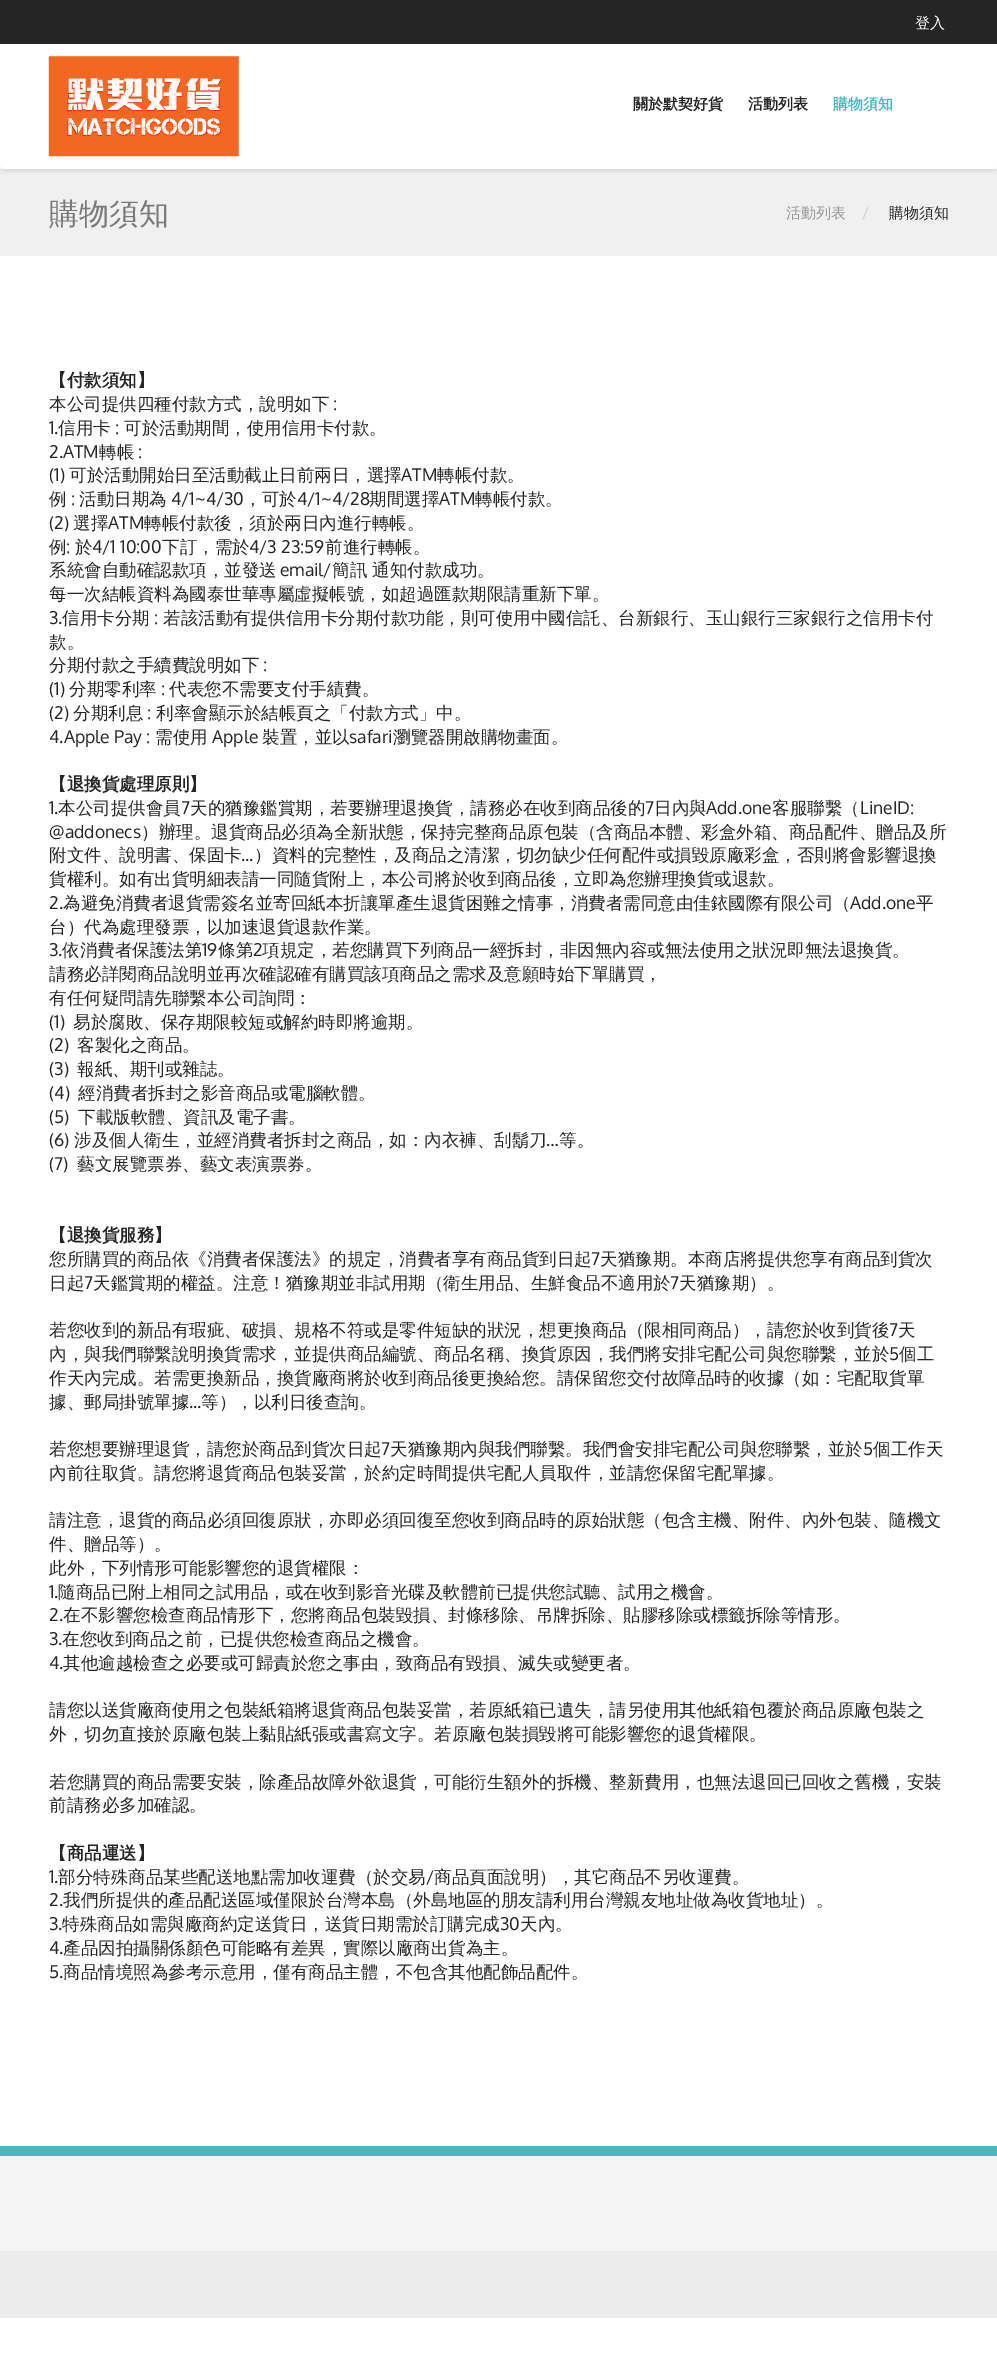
%!PS
<< /PageSize [997 2353] /PageUsesTransparency true >> setpagedevice
/rgb { 3 { 255 div 3 1 roll } repeat setrgbcolor } def
/font { [ exch dup neg 0 0 3 -1 roll 0 0 ] selectfont } def
/alpha { dup .setfillconstantalpha .setstrokeconstantalpha } def
/roundrect { 5 dict begin { /r /h /w /y /x } { exch def } forall
  x r add y moveto x w add y 2 copy h add r arct x w add y h add x 1 index r arct
  x y h add x y r arct x y 2 copy exch w add exch r arct closepath end } def
/shadow { 12 dict begin { /a /b /q /h /w /y /x } { exch def } forall gsave /was 0 def
  9 -2 -9 { dup b mul 4 div /e exch def 1 sub .425 mul 2.718 exch exp 1 add a .99 .min exch div /now exch def
    1 1 now sub 1 was sub div sub alpha /was now def
    w h .min e 2 mul add 0 gt { x e sub y e sub w e 2 mul add h e 2 mul add
      q e add b .6 mul add w h .min 2 div e add .min 0 .max roundrect fill } if } for grestore end } def
/picture { 5 dict begin { /h /w /y /x /name } { exch def } forall
  gsave x y translate w h scale
  w h 8 [w 0 0 h 0 0] name (r) file false 3 colorimage grestore end } def
0 .pushpdf14devicefilter
0 2353 translate 1 -1 scale
4 setmiterlimit
255 255 255 rgb
0 0 997 2353 rectfill
37 37 37 rgb
0 0 997 44 rectfill
240 240 240 rgb
0 169 997 87 rectfill
0 0 0 rgb
0 46 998 125 5 2.5 0.1 shadow
255 255 255 rgb
0 44 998 125 5 roundrect fill
(img/1.rgb) 48 56 191 101 picture
[
  [0 2156 997 95 245 245 245]
  [0 2146 997 10 71 186 193]
  [0 2251 997 67 236 236 236]
] { aload pop rgb rectfill } forall
/WenQuanYiZenHei-Medium 15 font
255 255 255 rgb
915 28 moveto (登入) show
/WenQuanYiZenHei-Bold 15 font
37 37 37 rgb
633 109 moveto (關於默契好貨) show
748 109 moveto (活動列表) show
71 186 193 rgb
833 109 moveto (購物須知) show
/WenQuanYiZenHei-Medium 30 font
121 121 121 rgb
49 224 moveto (購物須知) show
/WenQuanYiZenHei-Medium 15 font
150 150 150 rgb
786 218 moveto (活動列表) show
/Oxygen-Regular 15 font
204 204 204 rgb
862 218 moveto (/) show
/WenQuanYiZenHei-Medium 15 font
37 37 37 rgb
889 218 moveto (購物須知) show
/WenQuanYiZenHei-Bold 17.5 font
49 386 moveto (【付款須知】) show
/WenQuanYiZenHei-Medium 17.5 font
49 410 moveto (本公司提供四種付款方式，說明如下) show
/Oxygen-Regular 17.5 font
333 410 moveto (:) show
49 434 moveto (1.) show
/WenQuanYiZenHei-Medium 17.5 font
58 434 moveto (信用卡) show
/Oxygen-Regular 17.5 font
115 434 moveto (:) show
/WenQuanYiZenHei-Medium 17.5 font
124 434 moveto (可於活動期間，使用信用卡付款。) show
/Oxygen-Regular 17.5 font
49 458 moveto (2.ATM) show
/WenQuanYiZenHei-Medium 17.5 font
99 458 moveto (轉帳) show
/Oxygen-Regular 17.5 font
138 458 moveto (:) show
49 481 moveto (\(1\)) show
/WenQuanYiZenHei-Medium 17.5 font
69 481 moveto (可於活動開始日至活動截止日前兩日，選擇) show
/Oxygen-Regular 17.5 font
401 481 moveto (ATM) show
/WenQuanYiZenHei-Medium 17.5 font
437 481 moveto (轉帳付款。) show
49 505 moveto (例) show
/Oxygen-Regular 17.5 font
71 505 moveto (:) show
/WenQuanYiZenHei-Medium 17.5 font
79 505 moveto (活動日期為) show
/Oxygen-Regular 17.5 font
171 505 moveto (4/1~4/30) show
/WenQuanYiZenHei-Medium 17.5 font
244 505 moveto (，可於) show
/Oxygen-Regular 17.5 font
297 505 moveto (4/1~4/28) show
/WenQuanYiZenHei-Medium 17.5 font
369 505 moveto (期間選擇) show
/Oxygen-Regular 17.5 font
439 505 moveto (ATM) show
/WenQuanYiZenHei-Medium 17.5 font
475 505 moveto (轉帳付款。) show
/Oxygen-Regular 17.5 font
49 529 moveto (\(2\)) show
/WenQuanYiZenHei-Medium 17.5 font
73 529 moveto (選擇) show
/Oxygen-Regular 17.5 font
108 529 moveto (ATM) show
/WenQuanYiZenHei-Medium 17.5 font
144 529 moveto (轉帳付款後，須於兩日內進行轉帳。) show
49 553 moveto (例) show
/Oxygen-Regular 17.5 font
66 553 moveto (:) show
/WenQuanYiZenHei-Medium 17.5 font
75 553 moveto (於) show
/Oxygen-Regular 17.5 font
92 553 moveto (4/1 10:00) show
/WenQuanYiZenHei-Medium 17.5 font
162 553 moveto (下訂，需於) show
/Oxygen-Regular 17.5 font
249 553 moveto (4/3 23:59) show
/WenQuanYiZenHei-Medium 17.5 font
325 553 moveto (前進行轉帳。) show
49 576 moveto (系統會自動確認款項，並發送) show
/Oxygen-Regular 17.5 font
280 576 moveto (email/) show
/WenQuanYiZenHei-Medium 17.5 font
332 576 moveto (簡訊 通知付款成功。) show
49 600 moveto (每一次結帳資料為國泰世華專屬虛擬帳號，如超過匯款期限請重新下單。) show
/Oxygen-Regular 17.5 font
49 624 moveto (3.) show
/WenQuanYiZenHei-Medium 17.5 font
62 624 moveto (信用卡分期) show
/Oxygen-Regular 17.5 font
154 624 moveto (:) show
/WenQuanYiZenHei-Medium 17.5 font
[
  [(若該活動有提供信用卡分期付款功能，則可使用中國信託、台新銀行、玉山銀行三家銀行之信用卡付) 163 624]
  [(款。) 49 648]
  [(分期付款之手續費說明如下) 49 671]
] { aload pop moveto show } forall
/Oxygen-Regular 17.5 font
263 671 moveto (:) show
49 695 moveto (\(1\)) show
/WenQuanYiZenHei-Medium 17.5 font
69 695 moveto (分期零利率) show
/Oxygen-Regular 17.5 font
161 695 moveto (:) show
/WenQuanYiZenHei-Medium 17.5 font
169 695 moveto (代表您不需要支付手績費。) show
/Oxygen-Regular 17.5 font
49 719 moveto (\(2\)) show
/WenQuanYiZenHei-Medium 17.5 font
73 719 moveto (分期利息) show
/Oxygen-Regular 17.5 font
147 719 moveto (:) show
/WenQuanYiZenHei-Medium 17.5 font
156 719 moveto (利率會顯示於結帳頁之「付款方式」中。) show
/Oxygen-Regular 17.5 font
49 743 moveto (4.Apple Pay :) show
/WenQuanYiZenHei-Medium 17.5 font
155 743 moveto (需使用) show
/Oxygen-Regular 17.5 font
212 743 moveto (Apple) show
/WenQuanYiZenHei-Medium 17.5 font
262 743 moveto (裝置，並以) show
/Oxygen-Regular 17.5 font
349 743 moveto (safari) show
/WenQuanYiZenHei-Medium 17.5 font
393 743 moveto (瀏覽器開啟購物畫面。) show
/WenQuanYiZenHei-Bold 17.5 font
49 790 moveto (【退換貨處理原則】) show
/Oxygen-Regular 17.5 font
49 814 moveto (1.) show
/WenQuanYiZenHei-Medium 17.5 font
58 814 moveto (本公司提供會員) show
/Oxygen-Regular 17.5 font
181 814 moveto (7) show
/WenQuanYiZenHei-Medium 17.5 font
190 814 moveto (天的猶豫鑑賞期，若要辦理退換貨，請務必在收到商品後的) show
/Oxygen-Regular 17.5 font
645 814 moveto (7) show
/WenQuanYiZenHei-Medium 17.5 font
654 814 moveto (日內與) show
/Oxygen-Regular 17.5 font
706 814 moveto (Add.one) show
/WenQuanYiZenHei-Medium 17.5 font
772 814 moveto (客服聯繫（) show
/Oxygen-Regular 17.5 font
860 814 moveto (LineID:) show
49 838 moveto (@addonecs) show
/WenQuanYiZenHei-Medium 17.5 font
141 838 moveto (）辦理。退貨商品必須為全新狀態，保持完整商品原包裝（含商品本體、彩盒外箱、商品配件、贈品及所) show
49 861 moveto (附文件、說明書、保固卡) show
/Oxygen-Regular 17.5 font
241 861 moveto (...) show
/WenQuanYiZenHei-Medium 17.5 font
254 861 moveto (）資料的完整性，及商品之清潔，切勿缺少任何配件或損毀原廠彩盒，否則將會影響退換) show
49 885 moveto (貨權利。如有出貨明細表請一同隨貨附上，本公司將於收到商品後，立即為您辦理換貨或退款。) show
/Oxygen-Regular 17.5 font
49 909 moveto (2.) show
/WenQuanYiZenHei-Medium 17.5 font
63 909 moveto (為避免消費者退貨需簽名並寄回紙本折讓單產生退貨困難之情事，消費者需同意由佳銥國際有限公司（) show
/Oxygen-Regular 17.5 font
850 909 moveto (Add.one) show
/WenQuanYiZenHei-Medium 17.5 font
916 909 moveto (平) show
49 933 moveto (台）代為處理發票，以加速退貨退款作業。) show
/Oxygen-Regular 17.5 font
49 956 moveto (3.) show
/WenQuanYiZenHei-Medium 17.5 font
62 956 moveto (依消費者保護法第) show
/Oxygen-Regular 17.5 font
202 956 moveto (19) show
/WenQuanYiZenHei-Medium 17.5 font
218 956 moveto (條第) show
/Oxygen-Regular 17.5 font
253 956 moveto (2) show
/WenQuanYiZenHei-Medium 17.5 font
[
  [(項規定，若您購買下列商品一經拆封，非因無內容或無法使用之狀況即無法退換貨。) 262 956]
  [(請務必詳閱商品說明並再次確認確有購買該項商品之需求及意願時始下單購買，) 49 980]
  [(有任何疑問請先聯繫本公司詢問：) 49 1004]
] { aload pop moveto show } forall
/Oxygen-Regular 17.5 font
49 1028 moveto (\(1\)) show
/WenQuanYiZenHei-Medium 17.5 font
73 1028 moveto (易於腐敗、保存期限較短或解約時即將逾期。) show
/Oxygen-Regular 17.5 font
49 1051 moveto (\(2\)) show
/WenQuanYiZenHei-Medium 17.5 font
77 1051 moveto (客製化之商品。) show
/Oxygen-Regular 17.5 font
49 1075 moveto (\(3\)) show
/WenQuanYiZenHei-Medium 17.5 font
77 1075 moveto (報紙、期刊或雜誌。) show
/Oxygen-Regular 17.5 font
49 1099 moveto (\(4\)) show
/WenQuanYiZenHei-Medium 17.5 font
78 1099 moveto (經消費者拆封之影音商品或電腦軟體。) show
/Oxygen-Regular 17.5 font
49 1123 moveto (\(5\)) show
/WenQuanYiZenHei-Medium 17.5 font
78 1123 moveto (下載版軟體、資訊及電子書。) show
/Oxygen-Regular 17.5 font
49 1146 moveto (\(6\)) show
/WenQuanYiZenHei-Medium 17.5 font
74 1146 moveto (涉及個人衛生，並經消費者拆封之商品，如：內衣褲、刮鬍刀) show
/Oxygen-Regular 17.5 font
546 1146 moveto (…) show
/WenQuanYiZenHei-Medium 17.5 font
559 1146 moveto (等。) show
/Oxygen-Regular 17.5 font
49 1170 moveto (\(7\)) show
/WenQuanYiZenHei-Medium 17.5 font
77 1170 moveto (藝文展覽票券、藝文表演票券。) show
/WenQuanYiZenHei-Bold 17.5 font
49 1241 moveto (【退換貨服務】) show
/WenQuanYiZenHei-Medium 17.5 font
49 1265 moveto (您所購買的商品依《消費者保護法》的規定，消費者享有商品貨到日起) show
/Oxygen-Regular 17.5 font
591 1265 moveto (7) show
/WenQuanYiZenHei-Medium 17.5 font
600 1265 moveto (天猶豫期。本商店將提供您享有商品到貨次) show
49 1289 moveto (日起) show
/Oxygen-Regular 17.5 font
84 1289 moveto (7) show
/WenQuanYiZenHei-Medium 17.5 font
93 1289 moveto (天鑑賞期的權益。注意！猶豫期並非試用期（衛生用品、生鮮食品不適用於) show
/Oxygen-Regular 17.5 font
670 1289 moveto (7) show
/WenQuanYiZenHei-Medium 17.5 font
679 1289 moveto (天猶豫期）。) show
49 1336 moveto (若您收到的新品有瑕疵、破損、規格不符或是零件短缺的狀況，想更換商品（限相同商品），請您於收到貨後) show
/Oxygen-Regular 17.5 font
889 1336 moveto (7) show
/WenQuanYiZenHei-Medium 17.5 font
898 1336 moveto (天) show
49 1360 moveto (內，與我們聯繫說明換貨需求，並提供商品編號、商品名稱、換貨原因，我們將安排宅配公司與您聯繫，並於) show
/Oxygen-Regular 17.5 font
889 1360 moveto (5) show
/WenQuanYiZenHei-Medium 17.5 font
[
  [(個工) 899 1360]
  [(作天內完成。若需更換新品，換貨廠商將於收到商品後更換給您。請保留您交付故障品時的收據（如：宅配取貨單) 49 1384]
  [(據、郵局掛號單據) 49 1408]
] { aload pop moveto show } forall
/Oxygen-Regular 17.5 font
189 1408 moveto (...) show
/WenQuanYiZenHei-Medium 17.5 font
201 1408 moveto (等），以利日後查詢。) show
49 1455 moveto (若您想要辦理退貨，請您於商品到貨次日起) show
/Oxygen-Regular 17.5 font
381 1455 moveto (7) show
/WenQuanYiZenHei-Medium 17.5 font
390 1455 moveto (天猶豫期內與我們聯繫。我們會安排宅配公司與您聯繫，並於) show
/Oxygen-Regular 17.5 font
863 1455 moveto (5) show
/WenQuanYiZenHei-Medium 17.5 font
[
  [(個工作天) 873 1455]
  [(內前往取貨。請您將退貨商品包裝妥當，於約定時間提供宅配人員取件，並請您保留宅配單據。) 49 1479]
  [(請注意，退貨的商品必須回復原狀，亦即必須回復至您收到商品時的原始狀態（包含主機、附件、內外包裝、隨機文) 49 1526]
  [(件、贈品等）。) 49 1550]
  [(此外，下列情形可能影響您的退貨權限：) 49 1574]
] { aload pop moveto show } forall
/Oxygen-Regular 17.5 font
49 1598 moveto (1.) show
/WenQuanYiZenHei-Medium 17.5 font
58 1598 moveto (隨商品已附上相同之試用品，或在收到影音光碟及軟體前已提供您試聽、試用之機會。) show
/Oxygen-Regular 17.5 font
49 1621 moveto (2.) show
/WenQuanYiZenHei-Medium 17.5 font
63 1621 moveto (在不影響您檢查商品情形下，您將商品包裝毀損、封條移除、吊牌拆除、貼膠移除或標籤拆除等情形。) show
/Oxygen-Regular 17.5 font
49 1645 moveto (3.) show
/WenQuanYiZenHei-Medium 17.5 font
62 1645 moveto (在您收到商品之前，已提供您檢查商品之機會。) show
/Oxygen-Regular 17.5 font
49 1669 moveto (4.) show
/WenQuanYiZenHei-Medium 17.5 font
[
  [(其他逾越檢查之必要或可歸責於您之事由，致商品有毀損、滅失或變更者。) 63 1669]
  [(請您以送貨廠商使用之包裝紙箱將退貨商品包裝妥當，若原紙箱已遺失，請另使用其他紙箱包覆於商品原廠包裝之) 49 1716]
  [(外，切勿直接於原廠包裝上黏貼紙張或書寫文字。若原廠包裝損毀將可能影響您的退貨權限。) 49 1740]
  [(若您購買的商品需要安裝，除產品故障外欲退貨，可能衍生額外的拆機、整新費用，也無法退回已回收之舊機，安裝) 49 1788]
  [(前請務必多加確認。) 49 1811]
] { aload pop moveto show } forall
/WenQuanYiZenHei-Bold 17.5 font
49 1859 moveto (【商品運送】) show
/Oxygen-Regular 17.5 font
49 1883 moveto (1.) show
/WenQuanYiZenHei-Medium 17.5 font
58 1883 moveto (部分特殊商品某些配送地點需加收運費（於交易) show
/Oxygen-Regular 17.5 font
426 1883 moveto (/) show
/WenQuanYiZenHei-Medium 17.5 font
434 1883 moveto (商品頁面說明），其它商品不另收運費。) show
/Oxygen-Regular 17.5 font
49 1906 moveto (2.) show
/WenQuanYiZenHei-Medium 17.5 font
63 1906 moveto (我們所提供的產品配送區域僅限於台灣本島（外島地區的朋友請利用台灣親友地址做為收貨地址）。) show
/Oxygen-Regular 17.5 font
49 1930 moveto (3.) show
/WenQuanYiZenHei-Medium 17.5 font
62 1930 moveto (特殊商品如需與廠商約定送貨日，送貨日期需於訂購完成) show
/Oxygen-Regular 17.5 font
500 1930 moveto (30) show
/WenQuanYiZenHei-Medium 17.5 font
520 1930 moveto (天內。) show
/Oxygen-Regular 17.5 font
49 1954 moveto (4.) show
/WenQuanYiZenHei-Medium 17.5 font
63 1954 moveto (產品因拍攝關係顏色可能略有差異，實際以廠商出貨為主。) show
/Oxygen-Regular 17.5 font
49 1978 moveto (5.) show
/WenQuanYiZenHei-Medium 17.5 font
63 1978 moveto (商品情境照為參考示意用，僅有商品主體，不包含其他配飾品配件。) show
.poppdf14devicefilter showpage
